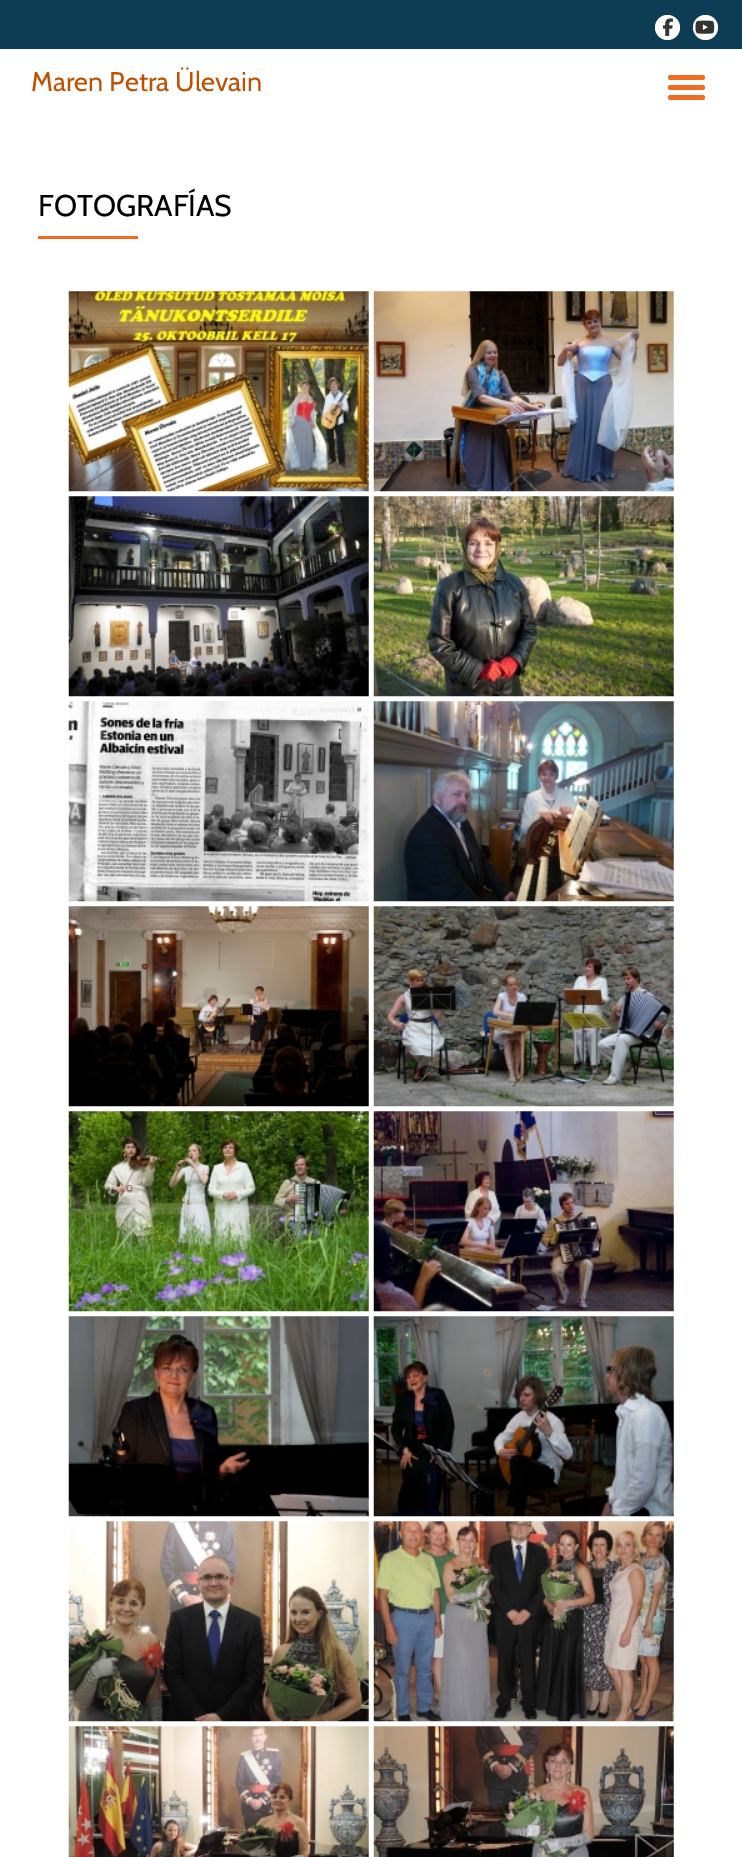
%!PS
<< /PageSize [742 1857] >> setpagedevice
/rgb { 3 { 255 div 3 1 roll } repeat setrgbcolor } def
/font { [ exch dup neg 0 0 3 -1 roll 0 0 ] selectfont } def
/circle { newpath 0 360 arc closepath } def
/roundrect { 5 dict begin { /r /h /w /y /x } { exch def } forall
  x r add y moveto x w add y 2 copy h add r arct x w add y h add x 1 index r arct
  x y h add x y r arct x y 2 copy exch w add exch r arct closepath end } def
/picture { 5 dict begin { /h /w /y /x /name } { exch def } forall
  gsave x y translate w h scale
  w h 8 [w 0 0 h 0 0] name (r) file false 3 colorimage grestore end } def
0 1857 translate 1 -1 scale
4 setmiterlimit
255 255 255 rgb
0 0 742 1857 rectfill
13 60 85 rgb
0 0 742 49 rectfill
255 255 255 rgb
667.5 27.5 12.5 circle fill
(img/1.rgb) 662 18 11 18 picture
705.5 27.5 12.5 circle fill
(img/2.rgb) 695 20 20 14 picture
241 108 32 rgb
668 75 37 5 2.5 roundrect fill
668 85 37 5 2.5 roundrect fill
668 95 37 5 2.5 roundrect fill
38 236 100 3 rectfill
(img/3.rgb) 68 291 301 201 picture
(img/4.rgb) 373 291 301 201 picture
(img/5.rgb) 68 496 301 201 picture
(img/6.rgb) 373 496 301 201 picture
(img/7.rgb) 68 701 301 201 picture
(img/8.rgb) 373 701 301 201 picture
(img/9.rgb) 68 906 301 201 picture
(img/10.rgb) 373 906 301 201 picture
(img/11.rgb) 68 1111 301 201 picture
(img/12.rgb) 373 1111 301 201 picture
(img/13.rgb) 68 1316 301 201 picture
(img/14.rgb) 373 1316 301 201 picture
(img/15.rgb) 68 1521 301 201 picture
(img/16.rgb) 373 1521 301 201 picture
(img/17.rgb) 68 1726 301 131 picture
(img/18.rgb) 373 1726 301 131 picture
/Cabin-Regular 27 font
190 80 0 rgb
31 91 moveto (Maren Petra Ülevain) show
/Cabin-Regular 30 font
0 0 0 rgb
38 216 moveto (FOTOGRAFÍAS) show
showpage
